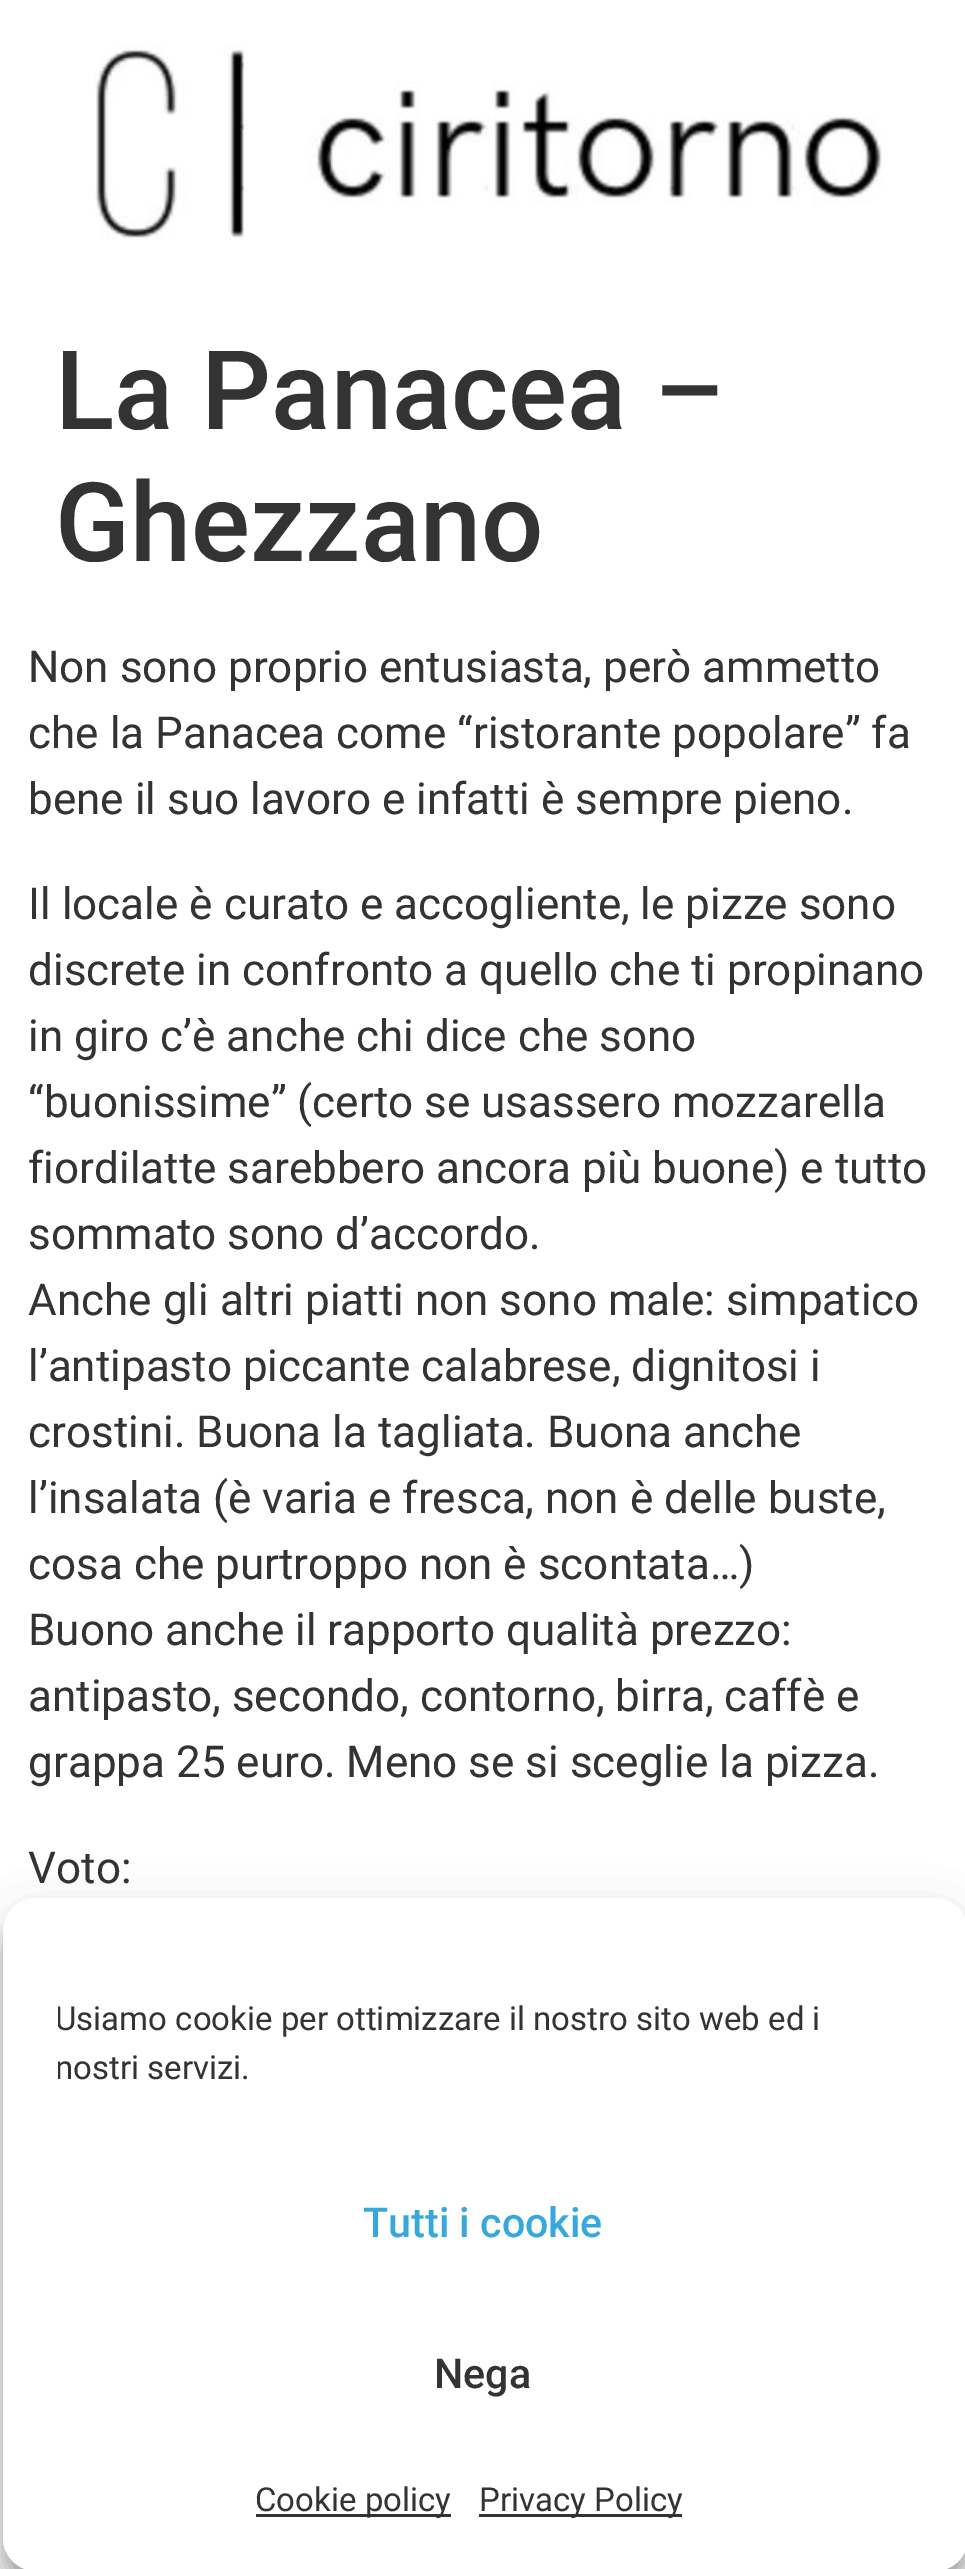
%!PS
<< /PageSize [965 2569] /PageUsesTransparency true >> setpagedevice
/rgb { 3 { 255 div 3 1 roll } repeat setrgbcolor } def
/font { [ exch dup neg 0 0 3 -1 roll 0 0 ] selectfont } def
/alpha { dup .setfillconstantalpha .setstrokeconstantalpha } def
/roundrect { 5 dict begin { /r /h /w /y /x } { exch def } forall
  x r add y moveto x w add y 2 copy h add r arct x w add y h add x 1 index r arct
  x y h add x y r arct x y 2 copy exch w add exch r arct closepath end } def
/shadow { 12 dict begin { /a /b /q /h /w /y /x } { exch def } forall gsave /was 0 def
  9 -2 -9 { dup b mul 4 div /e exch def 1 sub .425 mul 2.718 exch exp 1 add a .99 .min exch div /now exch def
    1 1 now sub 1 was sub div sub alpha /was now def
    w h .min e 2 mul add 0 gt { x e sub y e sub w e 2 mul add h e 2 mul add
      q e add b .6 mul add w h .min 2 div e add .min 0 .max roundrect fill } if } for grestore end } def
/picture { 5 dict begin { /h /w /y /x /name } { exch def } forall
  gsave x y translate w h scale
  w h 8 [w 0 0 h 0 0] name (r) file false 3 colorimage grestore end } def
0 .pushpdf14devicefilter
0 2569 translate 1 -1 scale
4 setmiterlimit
255 255 255 rgb
0 0 965 2569 rectfill
(img/1.rgb) 95 44 787 196 picture
gsave
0 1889 moveto 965 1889 lineto 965 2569 lineto 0 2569 lineto closepath 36 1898 moveto 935 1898 lineto 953 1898 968 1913 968 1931 curveto 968 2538 lineto 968 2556 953 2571 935 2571 curveto 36 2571 lineto 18 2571 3 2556 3 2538 curveto 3 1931 lineto 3 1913 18 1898 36 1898 curveto closepath eoclip newpath
0 0 0 rgb
3 1914 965 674 33 8 0.23 shadow
grestore
gsave
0 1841 moveto 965 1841 lineto 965 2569 lineto 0 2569 lineto closepath 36 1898 moveto 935 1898 lineto 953 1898 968 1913 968 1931 curveto 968 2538 lineto 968 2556 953 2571 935 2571 curveto 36 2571 lineto 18 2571 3 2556 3 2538 curveto 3 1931 lineto 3 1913 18 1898 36 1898 curveto closepath eoclip newpath
0 0 0 rgb
3 1925 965 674 33 27.5 0.19 shadow
grestore
3 1898 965 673 33 roundrect fill
51 51 51 rgb
256 2514 195 3 rectfill
479 2514 203 3 rectfill
/Roboto-Medium 110 font
55 429 moveto (La Panacea –) show
55 561 moveto (Ghezzano) show
/Roboto-Regular 44 font
[
  [(Non sono proprio entusiasta, però ammetto) 28 682]
  [(che la Panacea come “ristorante popolare” fa) 28 748]
  [(bene il suo lavoro e infatti è sempre pieno.) 28 814]
  [(Il locale è curato e accogliente, le pizze sono) 28 919]
  [(discrete in confronto a quello che ti propinano) 28 985]
  [(in giro c’è anche chi dice che sono) 28 1051]
  [(“buonissime” \(certo se usassero mozzarella) 28 1117]
  [(fiordilatte sarebbero ancora più buone\) e tutto) 28 1183]
  [(sommato sono d’accordo.) 28 1249]
  [(Anche gli altri piatti non sono male: simpatico) 28 1315]
  [(l’antipasto piccante calabrese, dignitosi i) 28 1381]
  [(crostini. Buona la tagliata. Buona anche) 28 1447]
  [(l’insalata \(è varia e fresca, non è delle buste,) 28 1513]
  [(cosa che purtroppo non è scontata…\)) 28 1579]
  [(Buono anche il rapporto qualità prezzo:) 28 1645]
  [(antipasto, secondo, contorno, birra, caffè e) 28 1711]
  [(grappa 25 euro. Meno se si sceglie la pizza.) 28 1777]
  [(Voto:) 28 1883]
] { aload pop moveto show } forall
gsave
58 1994 855 113 rectclip
/Roboto-Regular 33 font
55 2030 moveto (Usiamo cookie per ottimizzare il nostro sito web ed i) show
55 2079 moveto (nostri servizi.) show
grestore
/Roboto-Medium 41.25 font
55 168 222 rgb
363 2237 moveto (Tutti i cookie) show
51 51 51 rgb
434 2388 moveto (Nega) show
/Roboto-Regular 33 font
255 2511 moveto (Cookie policy) show
479 2511 moveto (Privacy Policy) show
.poppdf14devicefilter showpage
